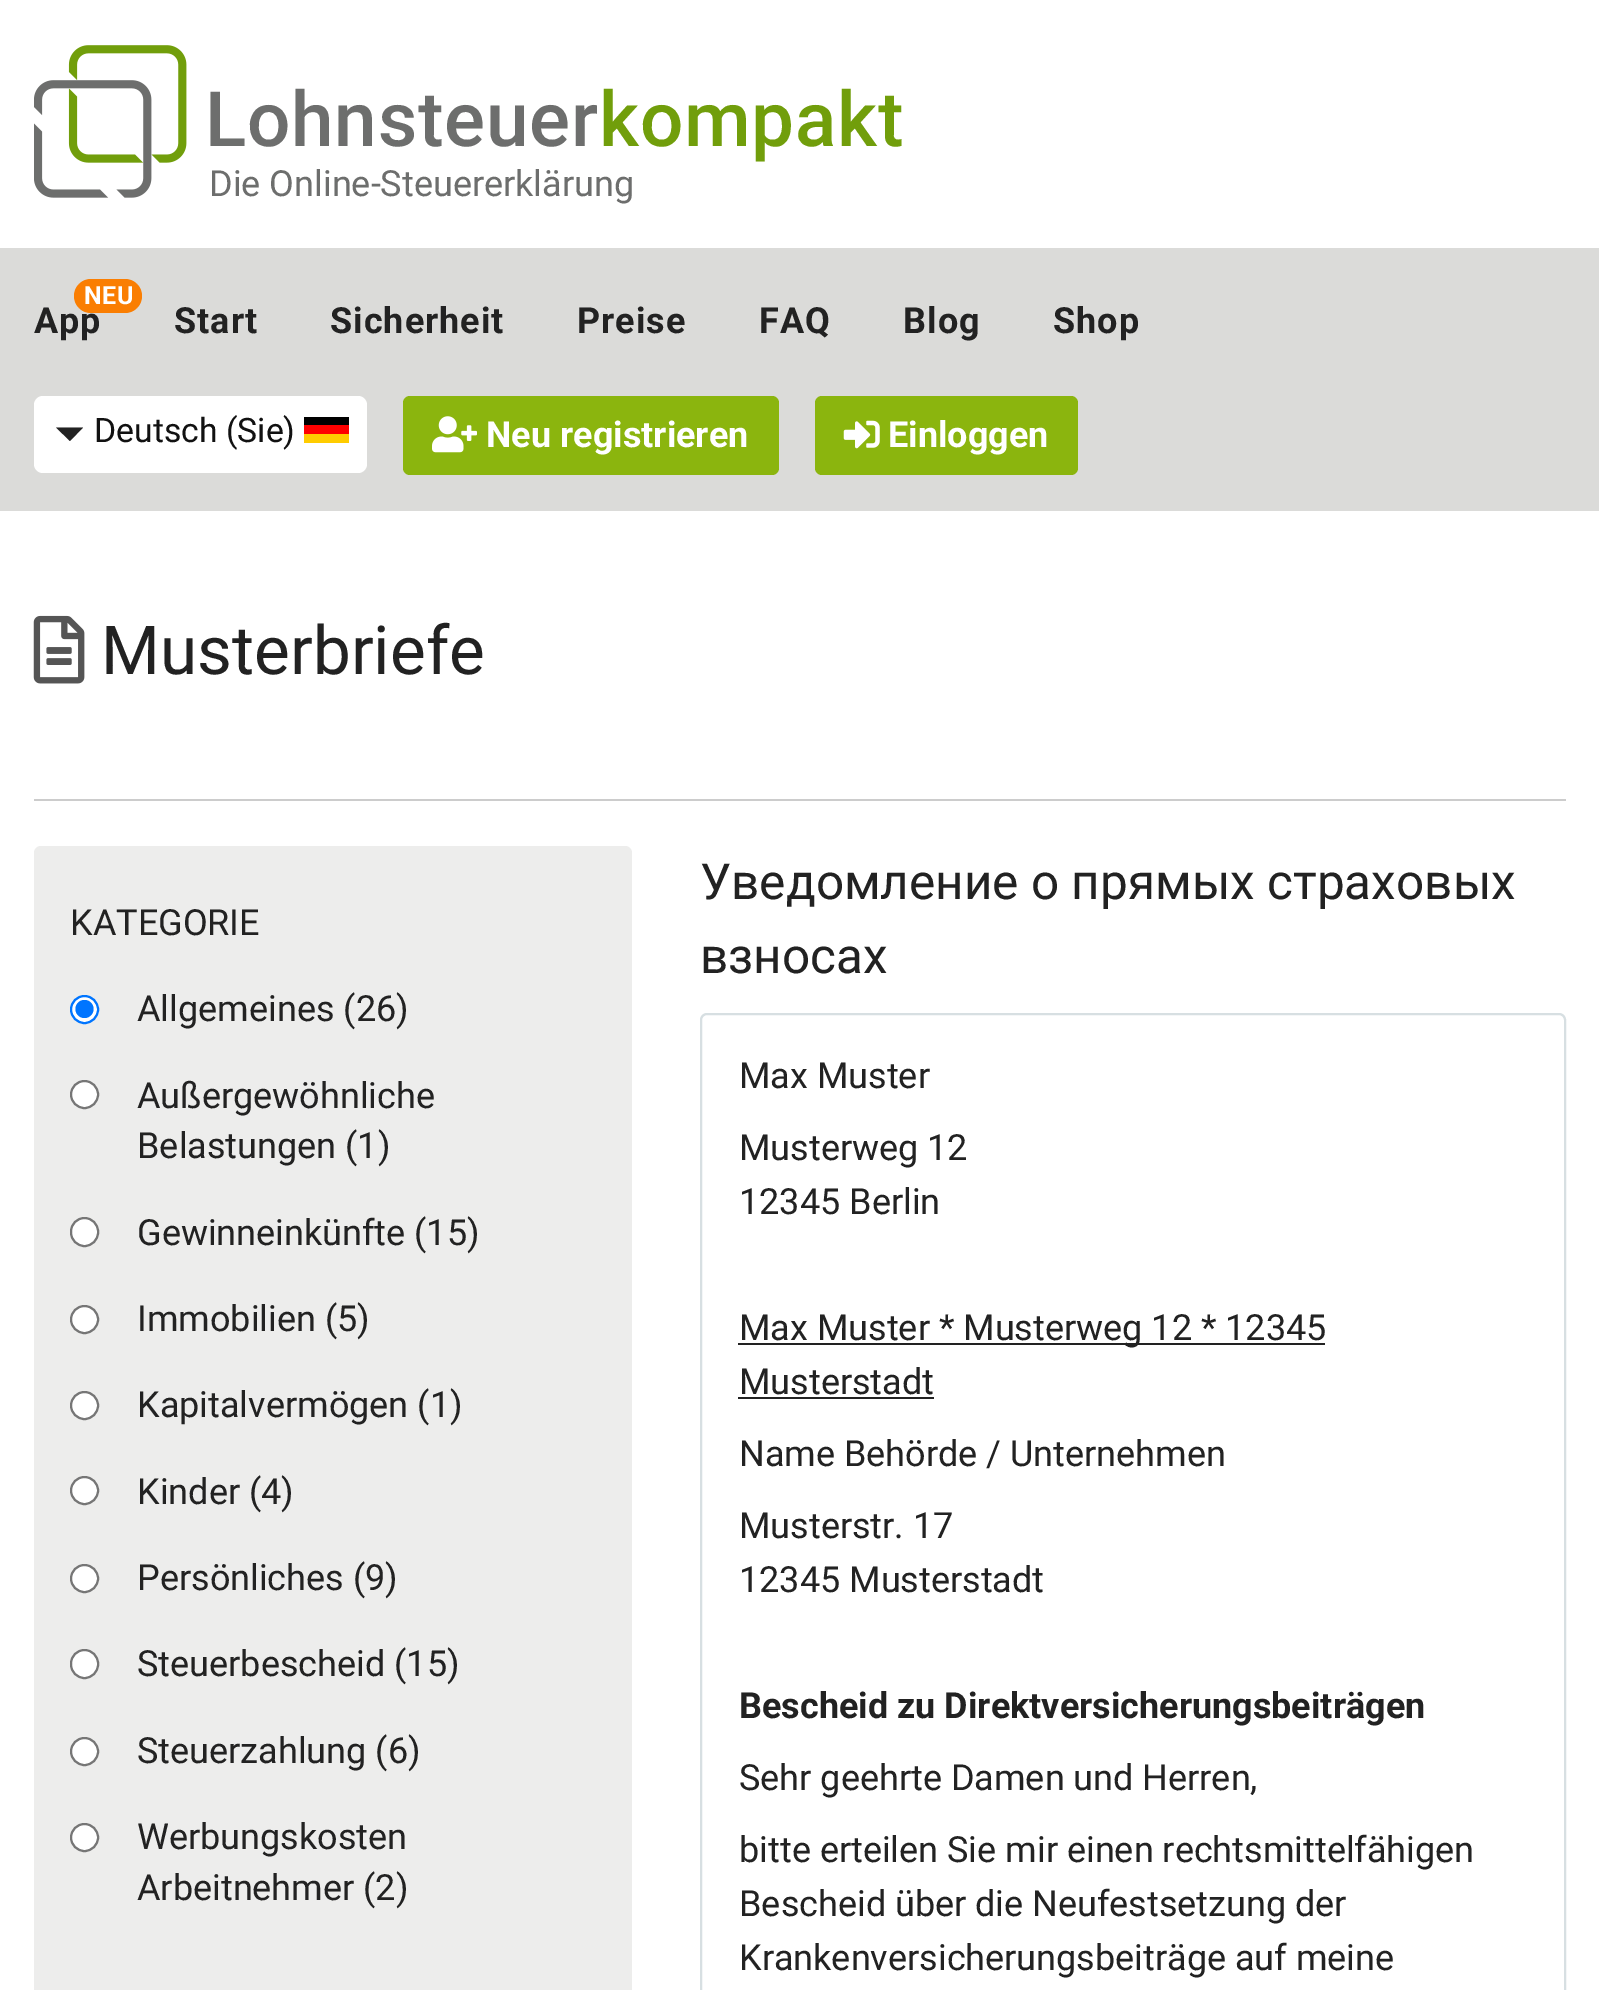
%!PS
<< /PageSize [1599 1990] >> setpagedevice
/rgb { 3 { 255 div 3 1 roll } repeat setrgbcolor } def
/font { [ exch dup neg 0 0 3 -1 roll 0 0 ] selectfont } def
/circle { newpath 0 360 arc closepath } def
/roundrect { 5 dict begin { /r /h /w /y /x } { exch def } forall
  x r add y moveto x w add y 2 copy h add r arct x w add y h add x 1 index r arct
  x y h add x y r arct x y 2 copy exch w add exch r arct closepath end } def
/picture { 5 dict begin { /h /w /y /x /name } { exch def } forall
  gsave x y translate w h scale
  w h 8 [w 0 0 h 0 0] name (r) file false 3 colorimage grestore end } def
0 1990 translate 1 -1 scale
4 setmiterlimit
255 255 255 rgb
0 0 1599 1990 rectfill
(img/1.rgb) 34 45 153 153 picture
219 219 217 rgb
0 248 1599 263 rectfill
250 126 2 rgb
74 279 68 34 17 roundrect fill
255 255 255 rgb
34 396 333 77 9 roundrect fill
34 34 34 rgb
56 427.5 moveto 83 427.5 lineto 70 441 lineto closepath fill
[
  [304 417 45 8 0 0 0]
  [304 425 45 9 255 0 0]
  [304 434 45 9 255 204 0]
] { aload pop rgb rectfill } forall
139 181 14 rgb
403 396 376 79 7 roundrect fill
(img/2.rgb) 432 416 45 37 picture
815 396 263 79 7 roundrect fill
(img/3.rgb) 843 420 37 29 picture
(img/4.rgb) 33 615 52 69 picture
204 204 204 rgb
34 799 1532 2 rectfill
237 237 236 rgb
34 846 598 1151 7 roundrect fill
255 255 255 rgb
84.5 1009.5 13.5 circle gsave fill grestore
0 117 255 rgb
2 setlinewidth
stroke
84.5 1009 9 circle fill
255 255 255 rgb
84.5 1094.5 13.5 circle gsave fill grestore
118 118 118 rgb
stroke
255 255 255 rgb
71 1218 27 28 13.5 roundrect gsave fill grestore
118 118 118 rgb
stroke
255 255 255 rgb
84.5 1319.5 13.5 circle gsave fill grestore
118 118 118 rgb
stroke
255 255 255 rgb
84.5 1405.5 13.5 circle gsave fill grestore
118 118 118 rgb
stroke
255 255 255 rgb
84.5 1490.5 13.5 circle gsave fill grestore
118 118 118 rgb
stroke
255 255 255 rgb
84.5 1578.5 13.5 circle gsave fill grestore
118 118 118 rgb
stroke
255 255 255 rgb
71 1650 27 28 13.5 roundrect gsave fill grestore
118 118 118 rgb
stroke
255 255 255 rgb
84.5 1751.5 13.5 circle gsave fill grestore
118 118 118 rgb
stroke
255 255 255 rgb
84.5 1837.5 13.5 circle gsave fill grestore
118 118 118 rgb
stroke
215 223 226 rgb
701 1014 864 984 6 roundrect stroke
34 34 34 rgb
738 1343 587 2 rectfill
738 1397 196 2 rectfill
/Roboto-Medium 76.5 font
109 110 109 rgb
205 146 moveto 0.75 0 (Lohnsteuer) ashow
113 158 11 rgb
599 146 moveto 0.75 0 (kompakt) ashow
/Roboto-Regular 36 font
109 110 109 rgb
209 196 moveto (Die Online-Steuererklärung) show
/Roboto-Bold 25 font
255 255 255 rgb
84 304 moveto 0.5 0 (NEU) ashow
/Roboto-Bold 36 font
34 34 34 rgb
34 333 moveto 1 0 (App) ashow
174 333 moveto 1 0 (Start) ashow
330 333 moveto 1 0 (Sicherheit) ashow
577 333 moveto 1 0 (Preise) ashow
759 333 moveto 1 0 (FAQ) ashow
903 333 moveto 1 0 (Blog) ashow
1053 333 moveto 1 0 (Shop) ashow
/Roboto-Regular 33.75 font
17 17 17 rgb
94 442 moveto (Deutsch \(Sie\)) show
/Roboto-Bold 36 font
255 255 255 rgb
486 447 moveto (Neu registrieren) show
888 447 moveto (Einloggen) show
/Roboto-Regular 67.5 font
34 34 34 rgb
101 674 moveto (Musterbriefe) show
/Roboto-Regular 36 font
[
  [(KATEGORIE) 70 935]
  [(Allgemeines \(26\)) 137 1021]
  [(Außergewöhnliche) 137 1108]
  [(Belastungen \(1\)) 137 1158]
  [(Gewinneinkünfte \(15\)) 137 1245]
  [(Immobilien \(5\)) 137 1331]
  [(Kapitalvermögen \(1\)) 137 1417]
  [(Kinder \(4\)) 137 1504]
  [(Persönliches \(9\)) 137 1590]
  [(Steuerbescheid \(15\)) 137 1676]
  [(Steuerzahlung \(6\)) 137 1763]
  [(Werbungskosten) 137 1849]
  [(Arbeitnehmer \(2\)) 137 1900]
] { aload pop moveto show } forall
/Roboto-Regular 49.5 font
700 899 moveto (Уведомление о прямых страховых) show
700 973 moveto (взносах) show
/Roboto-Regular 36 font
[
  [(Max Muster) 739 1088]
  [(Musterweg 12) 739 1160]
  [(12345 Berlin) 739 1214]
  [(Max Muster * Musterweg 12 * 12345) 739 1340]
  [(Musterstadt) 739 1394]
  [(Name Behörde / Unternehmen) 739 1466]
  [(Musterstr. 17) 739 1538]
  [(12345 Musterstadt) 739 1592]
] { aload pop moveto show } forall
/Roboto-Bold 36 font
739 1718 moveto (Bescheid zu Direktversicherungsbeiträgen) show
/Roboto-Regular 36 font
[
  [(Sehr geehrte Damen und Herren,) 739 1790]
  [(bitte erteilen Sie mir einen rechtsmittelfähigen) 739 1862]
  [(Bescheid über die Neufestsetzung der) 739 1916]
  [(Krankenversicherungsbeiträge auf meine) 739 1970]
] { aload pop moveto show } forall
showpage
